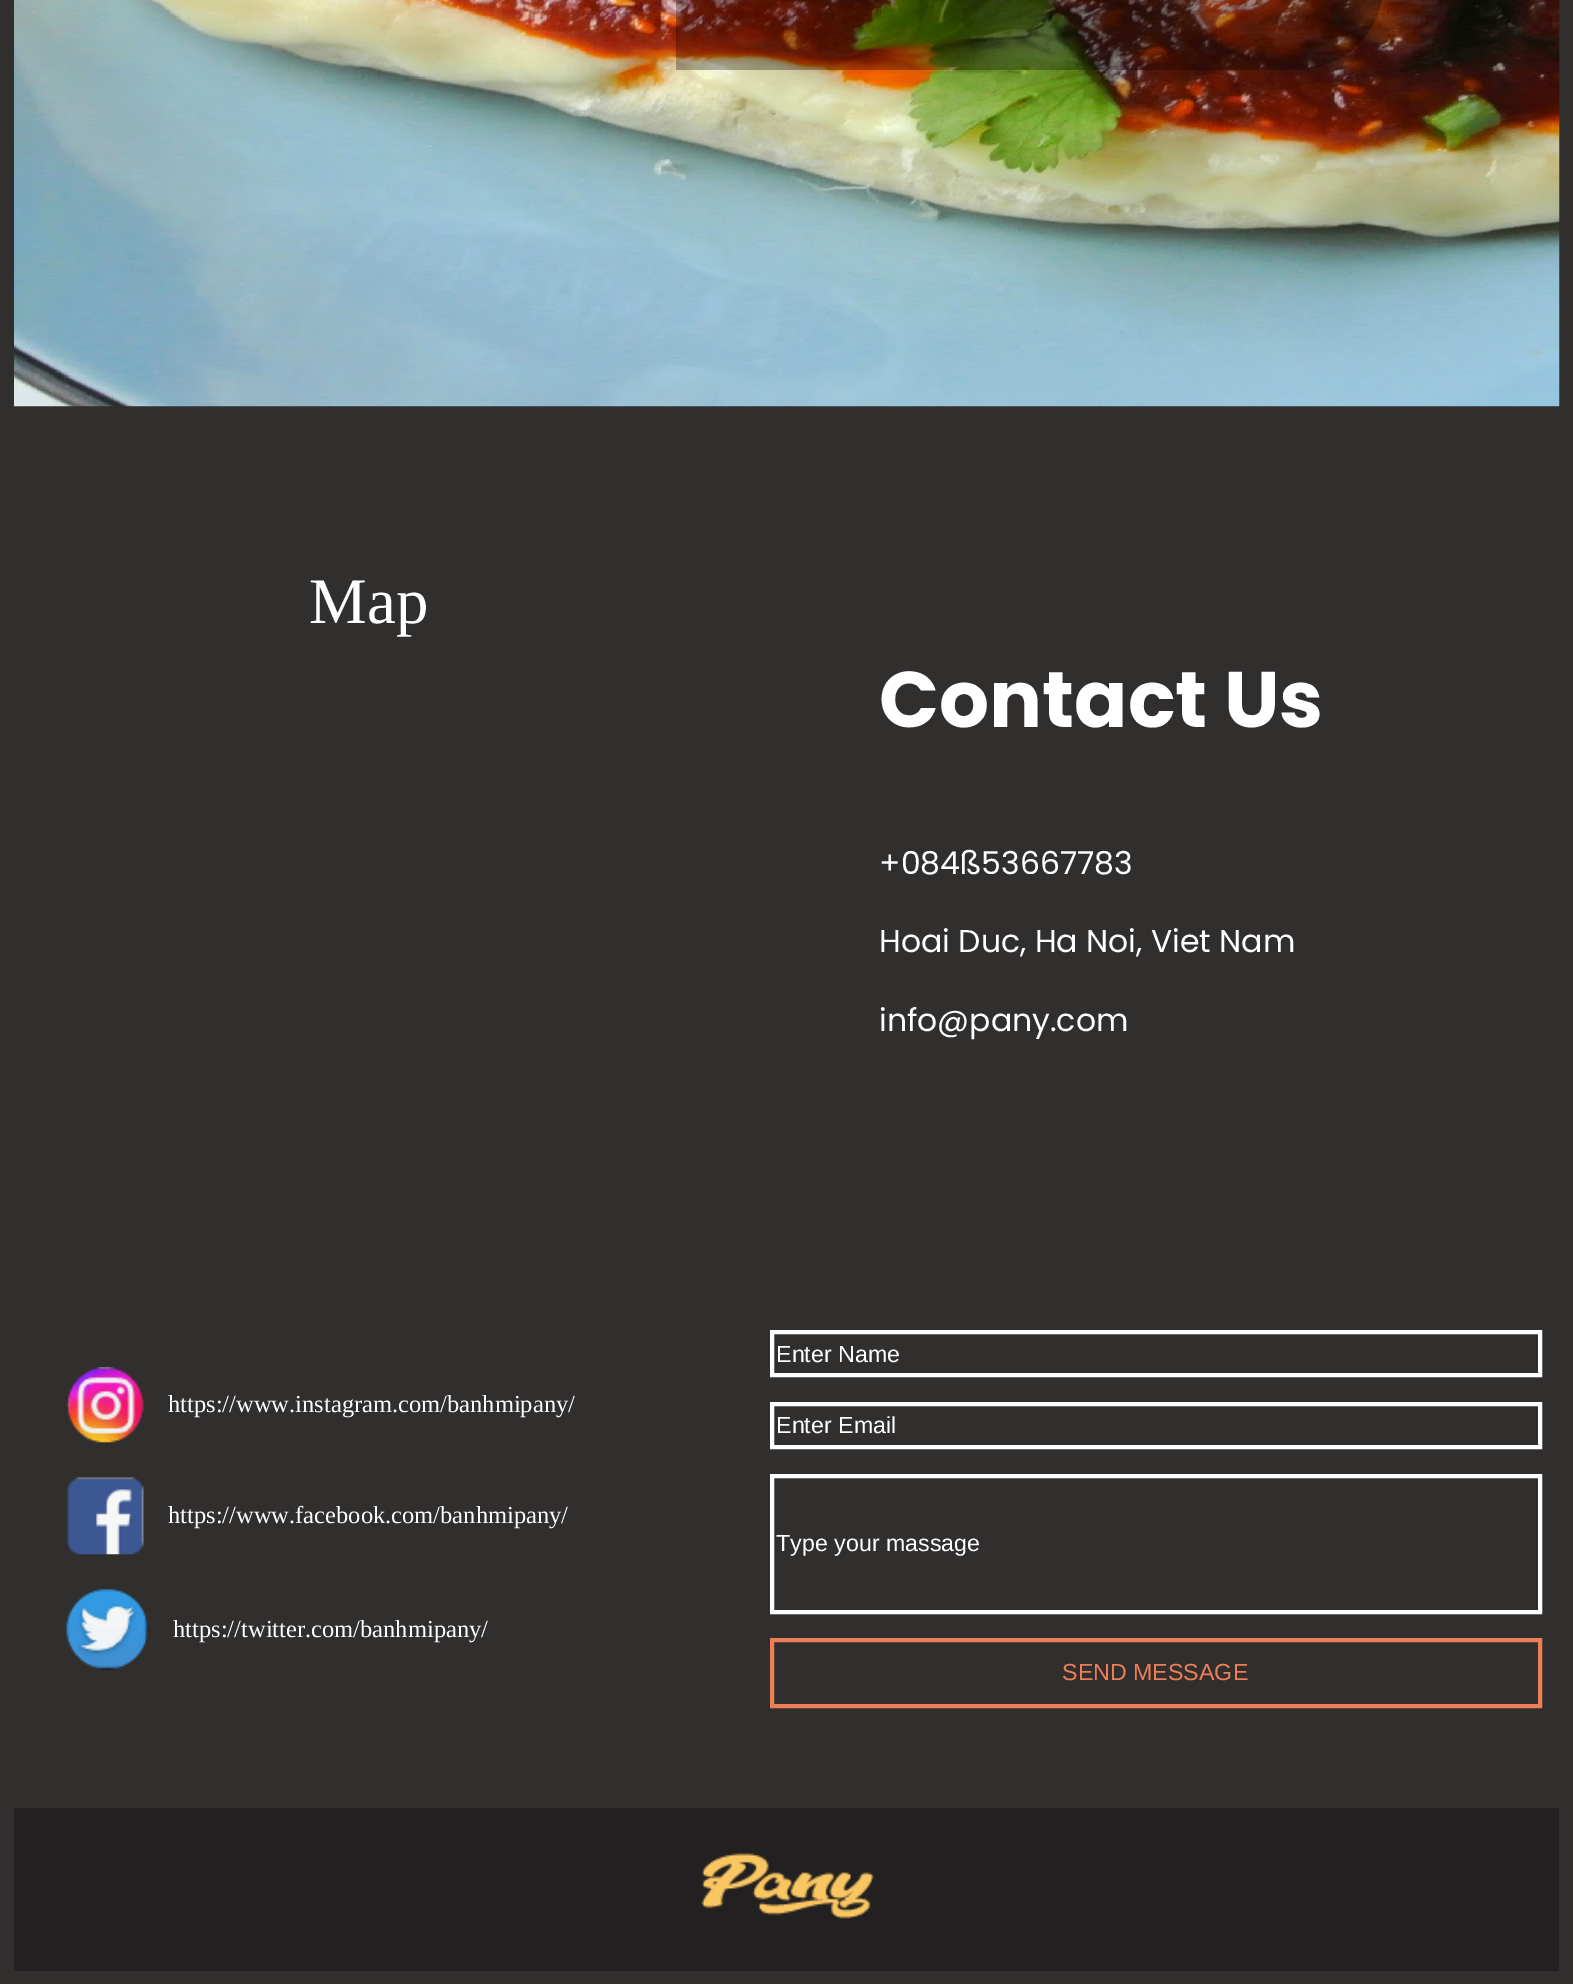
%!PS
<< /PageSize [1573 1984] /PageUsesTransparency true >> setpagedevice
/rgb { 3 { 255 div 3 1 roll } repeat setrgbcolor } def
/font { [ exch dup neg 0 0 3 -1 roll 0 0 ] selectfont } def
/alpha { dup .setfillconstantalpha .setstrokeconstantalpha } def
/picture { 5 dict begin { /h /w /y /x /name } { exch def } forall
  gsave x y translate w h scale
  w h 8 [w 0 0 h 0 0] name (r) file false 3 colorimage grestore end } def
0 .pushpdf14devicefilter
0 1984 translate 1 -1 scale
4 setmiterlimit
49 46 46 rgb
0 0 1573 1984 rectfill
(img/1.rgb) 14 0 1546 407 picture
0.3 alpha
0 0 0 rgb
764 -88 moveto 1384 -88 lineto 1384 -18 lineto 1384 30.5 1344.5 70 1296 70 curveto 676 70 lineto 676 0 lineto 676 -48.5 715.5 -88 764 -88 curveto closepath fill
1 alpha
(img/2.rgb) 66 1367 78 76 picture
(img/3.rgb) 66 1477 78 78 picture
(img/4.rgb) 66 1589 83 81 picture
255 255 255 rgb
4 setlinewidth
772 1332 768 43 rectstroke
772 1404 768 43 rectstroke
772 1476 768 136 rectstroke
237 126 88 rgb
772 1640 768 66 rectstroke
34 32 32 rgb
14 1808 1545 163 rectfill
(img/5.rgb) 701 1853 173 66 picture
/LiberationSerif-Regular 65 font
255 255 255 rgb
309 623 moveto (Map) show
/Poppins-Bold 78.75 font
879 727 moveto (Contact Us) show
/Poppins-Regular 31.5 font
[
  [(+084ß53667783) 879 874]
  [(Hoai Duc, Ha Noi, Viet Nam) 879 952]
  [(info@pany.com) 879 1031]
] { aload pop moveto show } forall
/LiberationSerif-Regular 24.5 font
[
  [(https://www.instagram.com/banhmipany/) 168 1412]
  [(https://www.facebook.com/banhmipany/) 168 1523]
  [(https://twitter.com/banhmipany/) 173 1637]
] { aload pop moveto show } forall
/LiberationSans-Regular 23.25 font
[
  [(Enter Name) 776 1362]
  [(Enter Email) 776 1433]
  [(Type your massage) 776 1551]
] { aload pop moveto show } forall
237 126 88 rgb
1062 1680 moveto (SEND MESSAGE) show
.poppdf14devicefilter showpage
